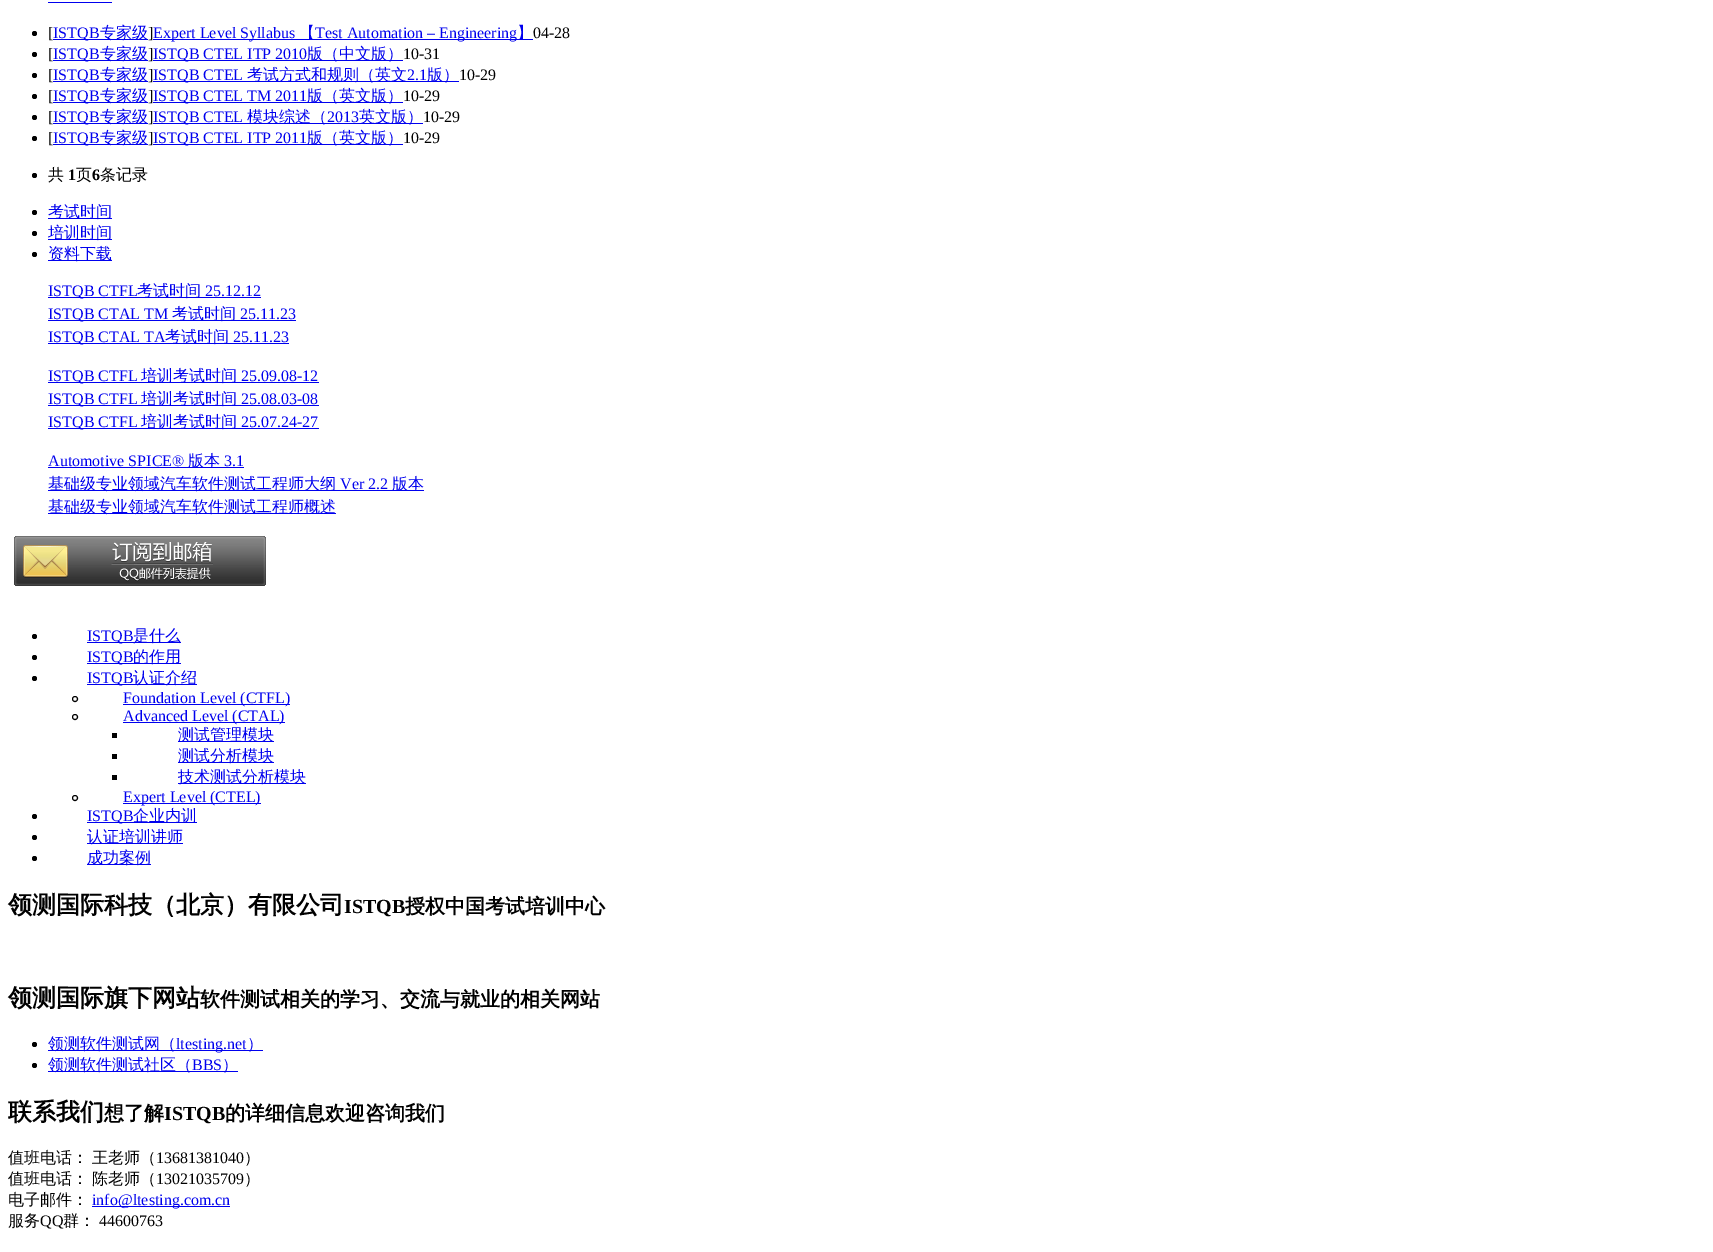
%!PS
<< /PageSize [1713 1252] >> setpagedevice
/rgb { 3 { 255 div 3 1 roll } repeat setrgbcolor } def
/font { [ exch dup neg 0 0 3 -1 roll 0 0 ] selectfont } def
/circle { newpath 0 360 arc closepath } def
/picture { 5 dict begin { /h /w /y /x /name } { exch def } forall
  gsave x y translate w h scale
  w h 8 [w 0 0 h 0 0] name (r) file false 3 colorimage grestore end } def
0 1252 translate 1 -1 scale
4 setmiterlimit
255 255 255 rgb
0 0 1713 1252 rectfill
0 0 238 rgb
48 2 64 1 rectfill
0 0 0 rgb
34.5 33.5 2.5 circle fill
0 0 238 rgb
53 39 95 1 rectfill
153 39 380 1 rectfill
0 0 0 rgb
34.5 54.5 2.5 circle fill
0 0 238 rgb
53 60 95 1 rectfill
153 60 250 1 rectfill
0 0 0 rgb
34.5 75.5 2.5 circle fill
0 0 238 rgb
53 81 95 1 rectfill
153 81 306 1 rectfill
0 0 0 rgb
34.5 96.5 2.5 circle fill
0 0 238 rgb
53 102 95 1 rectfill
153 102 250 1 rectfill
0 0 0 rgb
34.5 117.5 2.5 circle fill
0 0 238 rgb
53 123 95 1 rectfill
153 123 270 1 rectfill
0 0 0 rgb
34.5 138.5 2.5 circle fill
0 0 238 rgb
53 144 95 1 rectfill
153 144 250 1 rectfill
0 0 0 rgb
34.5 175.5 2.5 circle fill
34.5 212.5 2.5 circle fill
0 0 238 rgb
48 218 64 1 rectfill
0 0 0 rgb
34.5 233.5 2.5 circle fill
0 0 238 rgb
48 239 64 1 rectfill
0 0 0 rgb
34.5 254.5 2.5 circle fill
[
  [48 260 64 1 0 0 238]
  [48 297 213 1 0 0 238]
  [48 320 248 1 0 0 238]
  [48 343 241 1 0 0 238]
  [48 382 271 1 0 0 238]
  [48 405 271 1 0 0 238]
  [48 428 271 1 0 0 238]
  [48 467 196 1 0 0 238]
  [48 490 376 1 0 0 238]
  [48 513 288 1 0 0 238]
] { aload pop rgb rectfill } forall
(img/1.rgb) 14 536 252 50 picture
0 0 0 rgb
34.5 636.5 2.5 circle fill
0 0 238 rgb
87 642 94 1 rectfill
0 0 0 rgb
34.5 657.5 2.5 circle fill
0 0 238 rgb
87 663 94 1 rectfill
0 0 0 rgb
34.5 678.5 2.5 circle fill
0 0 238 rgb
87 684 110 1 rectfill
0 0 0 rgb
75 699 2.5 circle stroke
0 0 238 rgb
123 704 167 1 rectfill
0 0 0 rgb
75 717 2.5 circle stroke
[
  [123 722 162 1 0 0 238]
  [112 733 5 5 0 0 0]
  [178 741 96 1 0 0 238]
  [112 754 5 5 0 0 0]
  [178 762 96 1 0 0 238]
  [112 775 5 5 0 0 0]
  [178 783 128 1 0 0 238]
] { aload pop rgb rectfill } forall
0 0 0 rgb
75 798 2.5 circle stroke
0 0 238 rgb
123 803 138 1 rectfill
0 0 0 rgb
34.5 816.5 2.5 circle fill
0 0 238 rgb
87 822 110 1 rectfill
0 0 0 rgb
34.5 837.5 2.5 circle fill
0 0 238 rgb
87 843 96 1 rectfill
0 0 0 rgb
34.5 858.5 2.5 circle fill
0 0 238 rgb
87 864 64 1 rectfill
0 0 0 rgb
34.5 1044.5 2.5 circle fill
0 0 238 rgb
48 1050 215 1 rectfill
0 0 0 rgb
34.5 1065.5 2.5 circle fill
0 0 238 rgb
48 1071 190 1 rectfill
92 1206 138 1 rectfill
/LiberationSerif-Regular 16 font
0 0 0 rgb
48 38 moveto ([) show
0 0 238 rgb
53 38 moveto (ISTQB) show
/WenQuanYiZenHei-Medium 16 font
100 38 moveto (专家级) show
/LiberationSerif-Regular 16 font
0 0 0 rgb
148 38 moveto (]) show
0 0 238 rgb
153 38 moveto (Expert Level Syllabus) show
/WenQuanYiZenHei-Medium 16 font
299 38 moveto (【) show
/LiberationSerif-Regular 16 font
315 38 moveto (Test Automation – Engineering) show
/WenQuanYiZenHei-Medium 16 font
517 38 moveto (】) show
/LiberationSerif-Regular 16 font
0 0 0 rgb
533 38 moveto (04-28) show
48 59 moveto ([) show
0 0 238 rgb
53 59 moveto (ISTQB) show
/WenQuanYiZenHei-Medium 16 font
100 59 moveto (专家级) show
/LiberationSerif-Regular 16 font
0 0 0 rgb
148 59 moveto (]) show
0 0 238 rgb
153 59 moveto (ISTQB CTEL ITP 2010) show
/WenQuanYiZenHei-Medium 16 font
307 59 moveto (版（中文版）) show
/LiberationSerif-Regular 16 font
0 0 0 rgb
403 59 moveto (10-31) show
48 80 moveto ([) show
0 0 238 rgb
53 80 moveto (ISTQB) show
/WenQuanYiZenHei-Medium 16 font
100 80 moveto (专家级) show
/LiberationSerif-Regular 16 font
0 0 0 rgb
148 80 moveto (]) show
0 0 238 rgb
153 80 moveto (ISTQB CTEL) show
/WenQuanYiZenHei-Medium 16 font
247 80 moveto (考试方式和规则（英文) show
/LiberationSerif-Regular 16 font
407 80 moveto (2.1) show
/WenQuanYiZenHei-Medium 16 font
427 80 moveto (版）) show
/LiberationSerif-Regular 16 font
0 0 0 rgb
459 80 moveto (10-29) show
48 101 moveto ([) show
0 0 238 rgb
53 101 moveto (ISTQB) show
/WenQuanYiZenHei-Medium 16 font
100 101 moveto (专家级) show
/LiberationSerif-Regular 16 font
0 0 0 rgb
148 101 moveto (]) show
0 0 238 rgb
153 101 moveto (ISTQB CTEL TM 2011) show
/WenQuanYiZenHei-Medium 16 font
307 101 moveto (版（英文版）) show
/LiberationSerif-Regular 16 font
0 0 0 rgb
403 101 moveto (10-29) show
48 122 moveto ([) show
0 0 238 rgb
53 122 moveto (ISTQB) show
/WenQuanYiZenHei-Medium 16 font
100 122 moveto (专家级) show
/LiberationSerif-Regular 16 font
0 0 0 rgb
148 122 moveto (]) show
0 0 238 rgb
153 122 moveto (ISTQB CTEL) show
/WenQuanYiZenHei-Medium 16 font
247 122 moveto (模块综述（) show
/LiberationSerif-Regular 16 font
327 122 moveto (2013) show
/WenQuanYiZenHei-Medium 16 font
359 122 moveto (英文版）) show
/LiberationSerif-Regular 16 font
0 0 0 rgb
423 122 moveto (10-29) show
48 143 moveto ([) show
0 0 238 rgb
53 143 moveto (ISTQB) show
/WenQuanYiZenHei-Medium 16 font
100 143 moveto (专家级) show
/LiberationSerif-Regular 16 font
0 0 0 rgb
148 143 moveto (]) show
0 0 238 rgb
153 143 moveto (ISTQB CTEL ITP 2011) show
/WenQuanYiZenHei-Medium 16 font
307 143 moveto (版（英文版）) show
/LiberationSerif-Regular 16 font
0 0 0 rgb
403 143 moveto (10-29) show
/WenQuanYiZenHei-Medium 16 font
48 180 moveto (共) show
/LiberationSerif-Bold 16 font
68 180 moveto (1) show
/WenQuanYiZenHei-Medium 16 font
76 180 moveto (页) show
/LiberationSerif-Bold 16 font
92 180 moveto (6) show
/WenQuanYiZenHei-Medium 16 font
100 180 moveto (条记录) show
0 0 238 rgb
[
  [(考试时间) 48 217]
  [(培训时间) 48 238]
  [(资料下载) 48 259]
] { aload pop moveto show } forall
/LiberationSerif-Regular 16 font
48 296 moveto (ISTQB CTFL) show
/WenQuanYiZenHei-Medium 16 font
137 296 moveto (考试时间) show
/LiberationSerif-Regular 16 font
205 296 moveto (25.12.12) show
48 319 moveto (ISTQB CTAL TM) show
/WenQuanYiZenHei-Medium 16 font
172 319 moveto (考试时间) show
/LiberationSerif-Regular 16 font
240 319 moveto (25.11.23) show
48 342 moveto (ISTQB CTAL TA) show
/WenQuanYiZenHei-Medium 16 font
165 342 moveto (考试时间) show
/LiberationSerif-Regular 16 font
233 342 moveto (25.11.23) show
48 381 moveto (ISTQB CTFL) show
/WenQuanYiZenHei-Medium 16 font
141 381 moveto (培训考试时间) show
/LiberationSerif-Regular 16 font
241 381 moveto (25.09.08-12) show
48 404 moveto (ISTQB CTFL) show
/WenQuanYiZenHei-Medium 16 font
141 404 moveto (培训考试时间) show
/LiberationSerif-Regular 16 font
241 404 moveto (25.08.03-08) show
48 427 moveto (ISTQB CTFL) show
/WenQuanYiZenHei-Medium 16 font
141 427 moveto (培训考试时间) show
/LiberationSerif-Regular 16 font
241 427 moveto (25.07.24-27) show
48 466 moveto (Automotive SPICE®) show
/WenQuanYiZenHei-Medium 16 font
188 466 moveto (版本) show
/LiberationSerif-Regular 16 font
224 466 moveto (3.1) show
/WenQuanYiZenHei-Medium 16 font
48 489 moveto (基础级专业领域汽车软件测试工程师大纲) show
/LiberationSerif-Regular 16 font
340 489 moveto (Ver 2.2) show
/WenQuanYiZenHei-Medium 16 font
392 489 moveto (版本) show
48 512 moveto (基础级专业领域汽车软件测试工程师概述) show
/LiberationSerif-Regular 16 font
87 641 moveto (ISTQB) show
/WenQuanYiZenHei-Medium 16 font
133 641 moveto (是什么) show
/LiberationSerif-Regular 16 font
87 662 moveto (ISTQB) show
/WenQuanYiZenHei-Medium 16 font
133 662 moveto (的作用) show
/LiberationSerif-Regular 16 font
87 683 moveto (ISTQB) show
/WenQuanYiZenHei-Medium 16 font
133 683 moveto (认证介绍) show
/LiberationSerif-Regular 16 font
123 703 moveto (Foundation Level \(CTFL\)) show
123 721 moveto (Advanced Level \(CTAL\)) show
/WenQuanYiZenHei-Medium 16 font
[
  [(测试管理模块) 178 740]
  [(测试分析模块) 178 761]
  [(技术测试分析模块) 178 782]
] { aload pop moveto show } forall
/LiberationSerif-Regular 16 font
123 802 moveto (Expert Level \(CTEL\)) show
87 821 moveto (ISTQB) show
/WenQuanYiZenHei-Medium 16 font
[
  [(企业内训) 133 821]
  [(认证培训讲师) 87 842]
  [(成功案例) 87 863]
] { aload pop moveto show } forall
/WenQuanYiZenHei-Bold 24 font
0 0 0 rgb
8 913 moveto (领测国际科技（北京）有限公司) show
/LiberationSerif-Bold 20 font
344 913 moveto (ISTQB) show
/WenQuanYiZenHei-Bold 20 font
405 913 moveto (授权中国考试培训中心) show
/WenQuanYiZenHei-Bold 24 font
8 1006 moveto (领测国际旗下网站) show
/WenQuanYiZenHei-Bold 20 font
200 1006 moveto (软件测试相关的学习、交流与就业的相关网站) show
/WenQuanYiZenHei-Medium 16 font
0 0 238 rgb
48 1049 moveto (领测软件测试网（) show
/LiberationSerif-Regular 16 font
176 1049 moveto (ltesting.net) show
/WenQuanYiZenHei-Medium 16 font
247 1049 moveto (）) show
48 1070 moveto (领测软件测试社区（) show
/LiberationSerif-Regular 16 font
192 1070 moveto (BBS) show
/WenQuanYiZenHei-Medium 16 font
222 1070 moveto (）) show
/WenQuanYiZenHei-Bold 24 font
0 0 0 rgb
8 1120 moveto (联系我们) show
/WenQuanYiZenHei-Bold 20 font
104 1120 moveto (想了解) show
/LiberationSerif-Bold 20 font
164 1120 moveto (ISTQB) show
/WenQuanYiZenHei-Bold 20 font
225 1120 moveto (的详细信息欢迎咨询我们) show
/WenQuanYiZenHei-Medium 16 font
8 1163 moveto (值班电话：) show
92 1163 moveto (王老师（) show
/LiberationSerif-Regular 16 font
156 1163 moveto (13681381040) show
/WenQuanYiZenHei-Medium 16 font
[
  [(）) 244 1163]
  [(值班电话：) 8 1184]
  [(陈老师（) 92 1184]
] { aload pop moveto show } forall
/LiberationSerif-Regular 16 font
156 1184 moveto (13021035709) show
/WenQuanYiZenHei-Medium 16 font
244 1184 moveto (）) show
8 1205 moveto (电子邮件：) show
/LiberationSerif-Regular 16 font
0 0 238 rgb
92 1205 moveto (info@ltesting.com.cn) show
/WenQuanYiZenHei-Medium 16 font
0 0 0 rgb
8 1226 moveto (服务) show
/LiberationSerif-Regular 16 font
40 1226 moveto (QQ) show
/WenQuanYiZenHei-Medium 16 font
63 1226 moveto (群：) show
/LiberationSerif-Regular 16 font
99 1226 moveto (44600763) show
showpage
